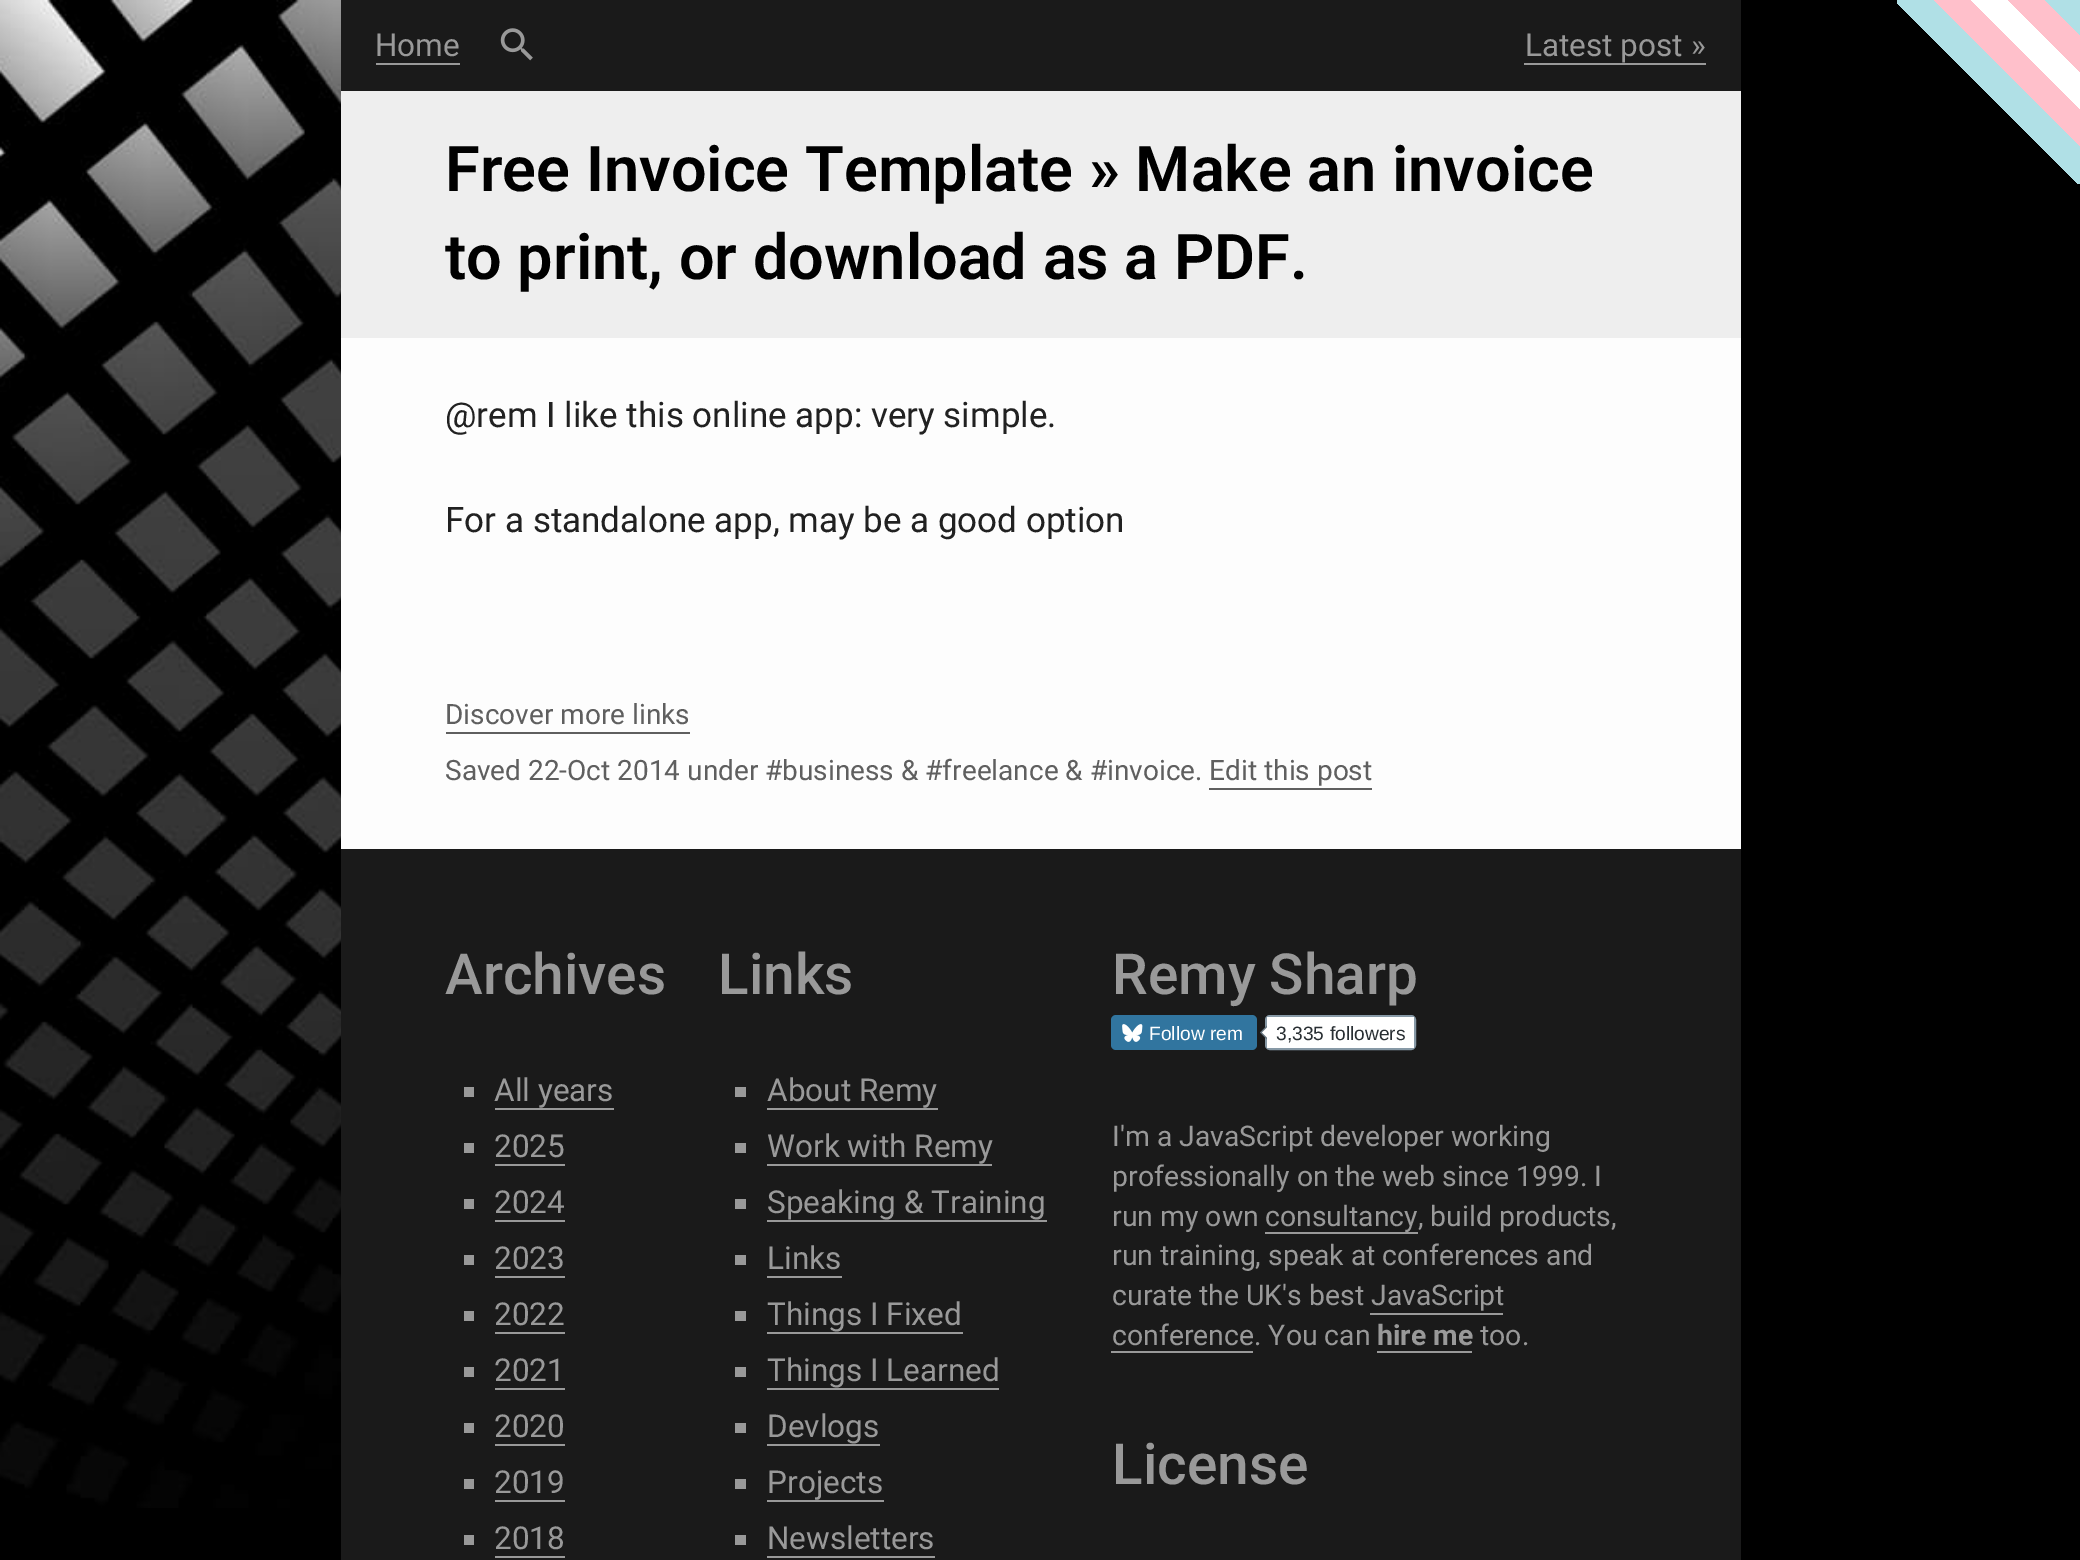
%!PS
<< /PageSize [2080 1560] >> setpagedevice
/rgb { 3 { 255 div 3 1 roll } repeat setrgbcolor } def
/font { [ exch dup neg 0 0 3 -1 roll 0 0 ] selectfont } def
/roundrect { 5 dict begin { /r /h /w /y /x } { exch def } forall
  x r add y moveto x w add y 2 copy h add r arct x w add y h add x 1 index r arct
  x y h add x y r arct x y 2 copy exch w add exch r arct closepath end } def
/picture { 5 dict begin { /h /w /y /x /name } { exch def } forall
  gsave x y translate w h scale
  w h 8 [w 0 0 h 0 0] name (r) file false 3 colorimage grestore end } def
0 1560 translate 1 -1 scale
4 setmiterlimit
0 0 0 rgb
0 0 2080 1560 rectfill
(img/1.rgb) 0 0 341 1508 picture
[
  [341 338 1400 511 253 253 253]
  [341 0 1400 91 26 26 26]
  [376 63 84 2 153 153 153]
] { aload pop rgb rectfill } forall
(img/2.rgb) 500 28 33 33 picture
[
  [1524 63 182 2 153 153 153]
  [341 91 1400 247 238 238 238]
  [446 732 244 2 95 95 95]
  [1209 788 163 2 95 95 95]
  [341 849 1400 711 26 26 26]
  [464 1087 10 10 153 153 153]
  [495 1108 119 2 153 153 153]
  [464 1143 10 10 153 153 153]
  [495 1164 70 2 153 153 153]
  [464 1199 10 10 153 153 153]
  [495 1220 70 2 153 153 153]
  [464 1255 10 10 153 153 153]
  [495 1276 70 2 153 153 153]
  [464 1311 10 10 153 153 153]
  [495 1332 70 2 153 153 153]
  [464 1367 10 10 153 153 153]
  [495 1388 70 2 153 153 153]
  [464 1423 10 10 153 153 153]
  [495 1444 70 2 153 153 153]
  [464 1479 10 10 153 153 153]
  [495 1500 70 2 153 153 153]
  [464 1535 10 10 153 153 153]
  [495 1556 70 2 153 153 153]
  [735 1087 11 10 153 153 153]
  [767 1108 171 2 153 153 153]
  [735 1143 11 10 153 153 153]
  [767 1164 225 2 153 153 153]
  [735 1199 11 10 153 153 153]
  [767 1220 280 2 153 153 153]
  [735 1255 11 10 153 153 153]
  [767 1276 75 2 153 153 153]
  [735 1311 11 10 153 153 153]
  [767 1332 196 2 153 153 153]
  [735 1367 11 10 153 153 153]
  [767 1388 232 2 153 153 153]
  [735 1423 11 10 153 153 153]
  [767 1444 113 2 153 153 153]
  [735 1479 11 10 153 153 153]
  [767 1500 117 2 153 153 153]
  [735 1535 11 10 153 153 153]
  [767 1556 168 2 153 153 153]
] { aload pop rgb rectfill } forall
49 117 159 rgb
1111 1015 146 35 5 roundrect fill
(img/3.rgb) 1122 1024 21 18 picture
135 153 166 rgb
2 setlinewidth
1266 1016 149 33 4 roundrect stroke
102 117 127 rgb
1267 1025.5 moveto 1267 1039.5 lineto 1260 1032.5 lineto closepath fill
255 255 255 rgb
1267 1017 147 31 rectfill
1269 1025.5 moveto 1269 1039.5 lineto 1262 1032.5 lineto closepath fill
[
  [1265 1232 153 2 153 153 153]
  [1370 1313 133 2 153 153 153]
  [1111 1351 142 2 153 153 153]
  [1377 1351 95 2 153 153 153]
] { aload pop rgb rectfill } forall
gsave 1897 0 moveto 2080 0 lineto 2080 184 lineto 1897 184 lineto closepath clip newpath
<< /ShadingType 2 /ColorSpace /DeviceRGB /Coords [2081 0 1897 184] /Extend [true true] /Function << /FunctionType 3 /Domain [0 1] /Functions [<< /FunctionType 2 /Domain [0 1] /C0 [0.69 0.878 0.902] /C1 [0.69 0.878 0.902] /N 1 >> << /FunctionType 2 /Domain [0 1] /C0 [1 0.753 0.796] /C1 [1 0.753 0.796] /N 1 >> << /FunctionType 2 /Domain [0 1] /C0 [1 1 1] /C1 [1 1 1] /N 1 >> << /FunctionType 2 /Domain [0 1] /C0 [1 0.753 0.796] /C1 [1 0.753 0.796] /N 1 >> << /FunctionType 2 /Domain [0 1] /C0 [0.69 0.878 0.902] /C1 [0.69 0.878 0.902] /N 1 >> << /FunctionType 2 /Domain [0 1] /C0 [0 0 0] /C1 [0 0 0] /N 1 >>] /Bounds [0.1 0.2 0.3 0.4 0.51] /Encode [0 1 0 1 0 1 0 1 0 1 0 1] >> >> shfill grestore
/Roboto-Regular 31.5 font
375 56 moveto (Home) show
1525 56 moveto (Latest post ») show
/Roboto-SemiBold 63 font
0 0 0 rgb
445 191 moveto (Free Invoice Template » Make an invoice) show
445 279 moveto (to print, or download as a PDF.) show
/Roboto-Regular 35 font
33 33 33 rgb
445 427 moveto (@rem I like this online app: very simple.) show
445 532 moveto (For a standalone app, may be a good option) show
/Roboto-Regular 28 font
95 95 95 rgb
445 724 moveto (Discover more links) show
445 780 moveto (Saved 22-Oct 2014 under #business & #freelance & #invoice. Edit this post) show
/Roboto-Medium 56.75 font
153 153 153 rgb
445 994 moveto (Archives) show
/Roboto-Regular 31.5 font
[
  [(All years) 494 1101]
  [(2025) 494 1157]
  [(2024) 494 1213]
  [(2023) 494 1269]
  [(2022) 494 1325]
  [(2021) 494 1381]
  [(2020) 494 1437]
  [(2019) 494 1493]
  [(2018) 494 1549]
] { aload pop moveto show } forall
/Roboto-Medium 56.75 font
718 994 moveto (Links) show
/Roboto-Regular 31.5 font
[
  [(About Remy) 767 1101]
  [(Work with Remy) 767 1157]
  [(Speaking & Training) 767 1213]
  [(Links) 767 1269]
  [(Things I Fixed) 767 1325]
  [(Things I Learned) 767 1381]
  [(Devlogs) 767 1437]
  [(Projects) 767 1493]
  [(Newsletters) 767 1549]
] { aload pop moveto show } forall
/Roboto-Medium 56.75 font
1112 994 moveto (Remy Sharp) show
/LiberationSans-Regular 19.25 font
255 255 255 rgb
1149 1040 moveto (Follow rem) show
41 47 51 rgb
1276 1040 moveto (3,335 followers) show
/Roboto-Regular 28.4 font
153 153 153 rgb
[
  [(I'm a JavaScript developer working) 1112 1146]
  [(professionally on the web since 1999. I) 1112 1186]
  [(run my own) 1112 1226]
  [(consultancy, build products,) 1265 1226]
  [(run training, speak at conferences and) 1112 1265]
  [(curate the UK's best JavaScript) 1112 1305]
  [(conference. You can) 1112 1345]
] { aload pop moveto show } forall
/Roboto-Bold 28.4 font
1377 1345 moveto (hire me) show
/Roboto-Regular 28.4 font
1480 1345 moveto (too.) show
/Roboto-Medium 56.75 font
1112 1484 moveto (License) show
showpage
